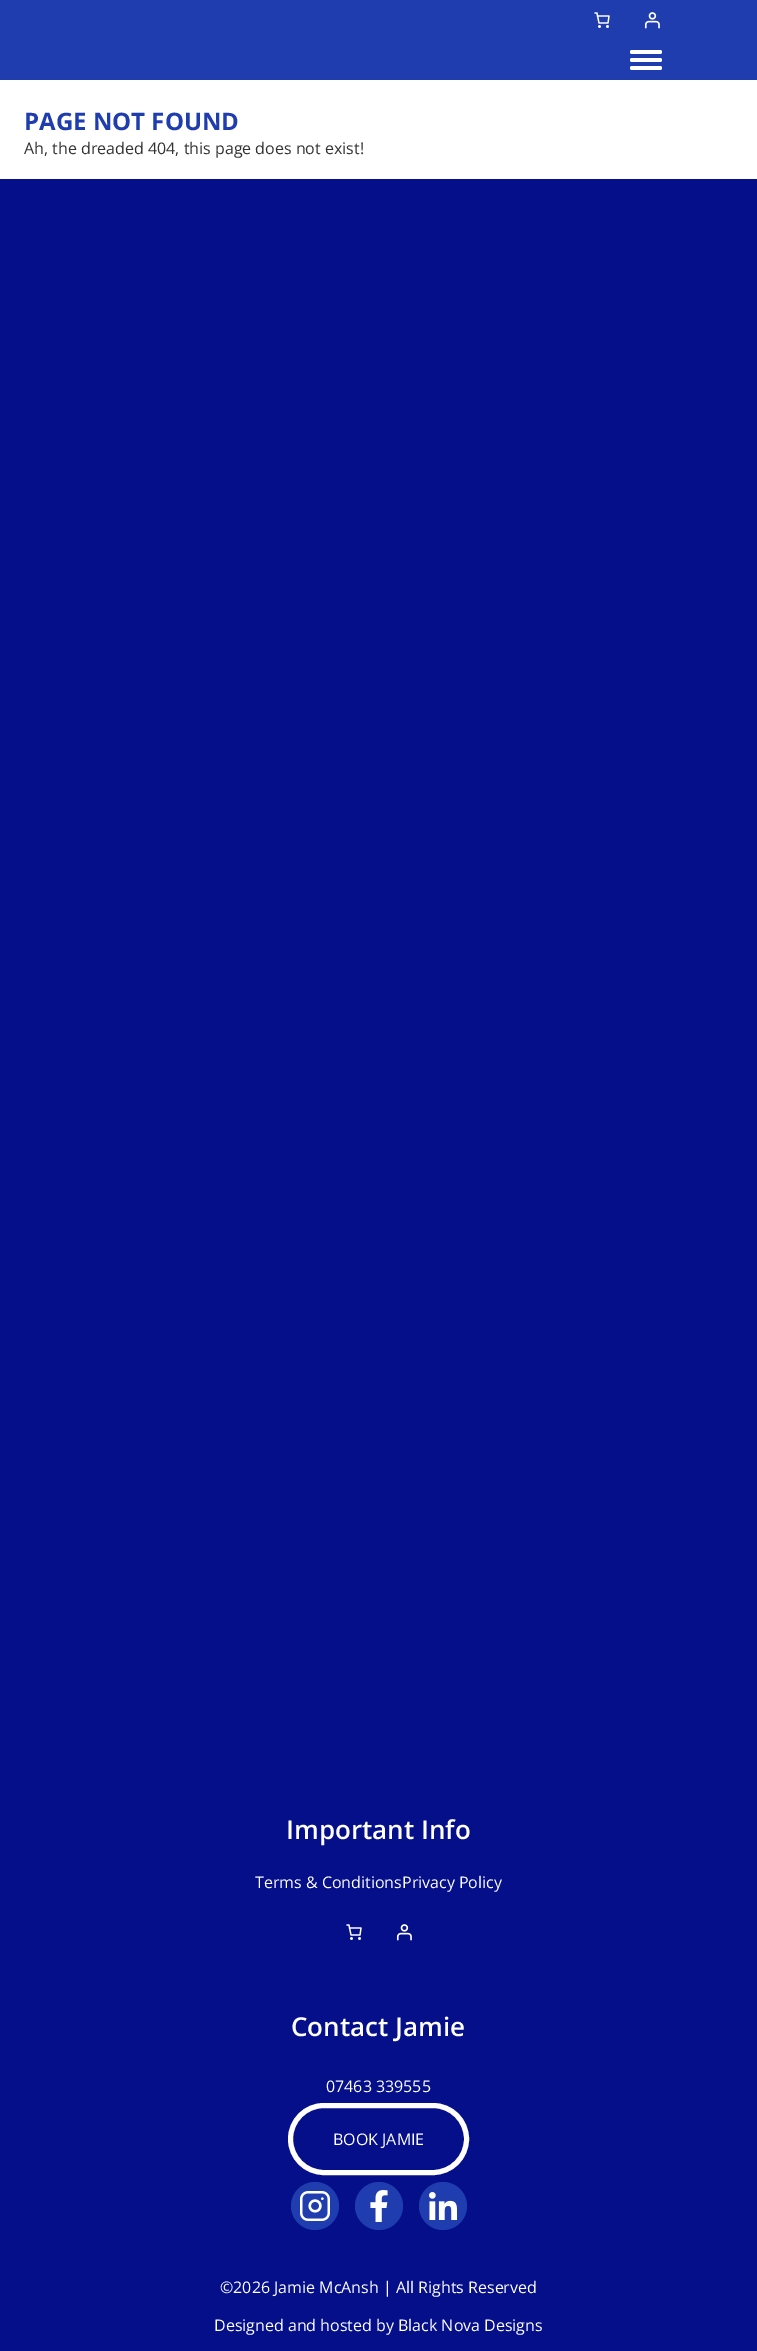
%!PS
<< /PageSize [757 2351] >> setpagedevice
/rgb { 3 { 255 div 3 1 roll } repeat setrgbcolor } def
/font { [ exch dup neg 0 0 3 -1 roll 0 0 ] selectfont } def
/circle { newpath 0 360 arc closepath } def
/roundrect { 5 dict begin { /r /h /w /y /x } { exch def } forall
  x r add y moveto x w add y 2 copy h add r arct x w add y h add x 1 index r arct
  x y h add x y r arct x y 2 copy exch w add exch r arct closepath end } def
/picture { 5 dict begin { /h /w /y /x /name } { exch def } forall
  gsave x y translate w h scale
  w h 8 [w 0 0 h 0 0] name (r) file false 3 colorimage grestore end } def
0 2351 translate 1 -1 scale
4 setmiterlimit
255 255 255 rgb
0 0 757 2351 rectfill
31 61 174 rgb
0 0 757 80 rectfill
(img/1.rgb) 594 12 16 16 picture
(img/2.rgb) 644 12 16 17 picture
255 255 255 rgb
630 50 32 4 2 roundrect fill
630 58 32 4 2 roundrect fill
630 66 32 4 2 roundrect fill
5 15 137 rgb
0 179 757 2172 rectfill
(img/3.rgb) 346 1924 16 16 picture
(img/4.rgb) 396 1924 16 17 picture
255 255 255 rgb
5 setlinewidth
290.5 2105.5 176 67 33.5 roundrect stroke
31 61 174 rgb
315 2206 24 circle fill
(img/5.rgb) 300 2191 30 30 picture
379 2206 24 circle fill
(img/6.rgb) 370 2190 18 32 picture
443 2206 24 circle fill
(img/7.rgb) 429 2192 28 28 picture
/OpenSans-Bold 24 font
24 130 moveto (PAGE NOT FOUND) show
/OpenSans-Regular 16 font
50 50 50 rgb
24 154 moveto (Ah, the dreaded 404, this page does not exist!) show
/OpenSans-SemiBold 26 font
255 255 255 rgb
286 1839 moveto (Important Info) show
/OpenSans-Regular 16 font
255 1888 moveto (Terms & ConditionsPrivacy Policy) show
/OpenSans-SemiBold 26 font
291 2036 moveto (Contact Jamie) show
/OpenSans-Regular 16 font
[
  [(07463 339555) 326 2092]
  [(BOOK JAMIE) 333 2145]
  [(©2026 Jamie McAnsh | All Rights Reserved) 220 2293]
  [(Designed and hosted by Black Nova Designs) 214 2331]
] { aload pop moveto show } forall
showpage
